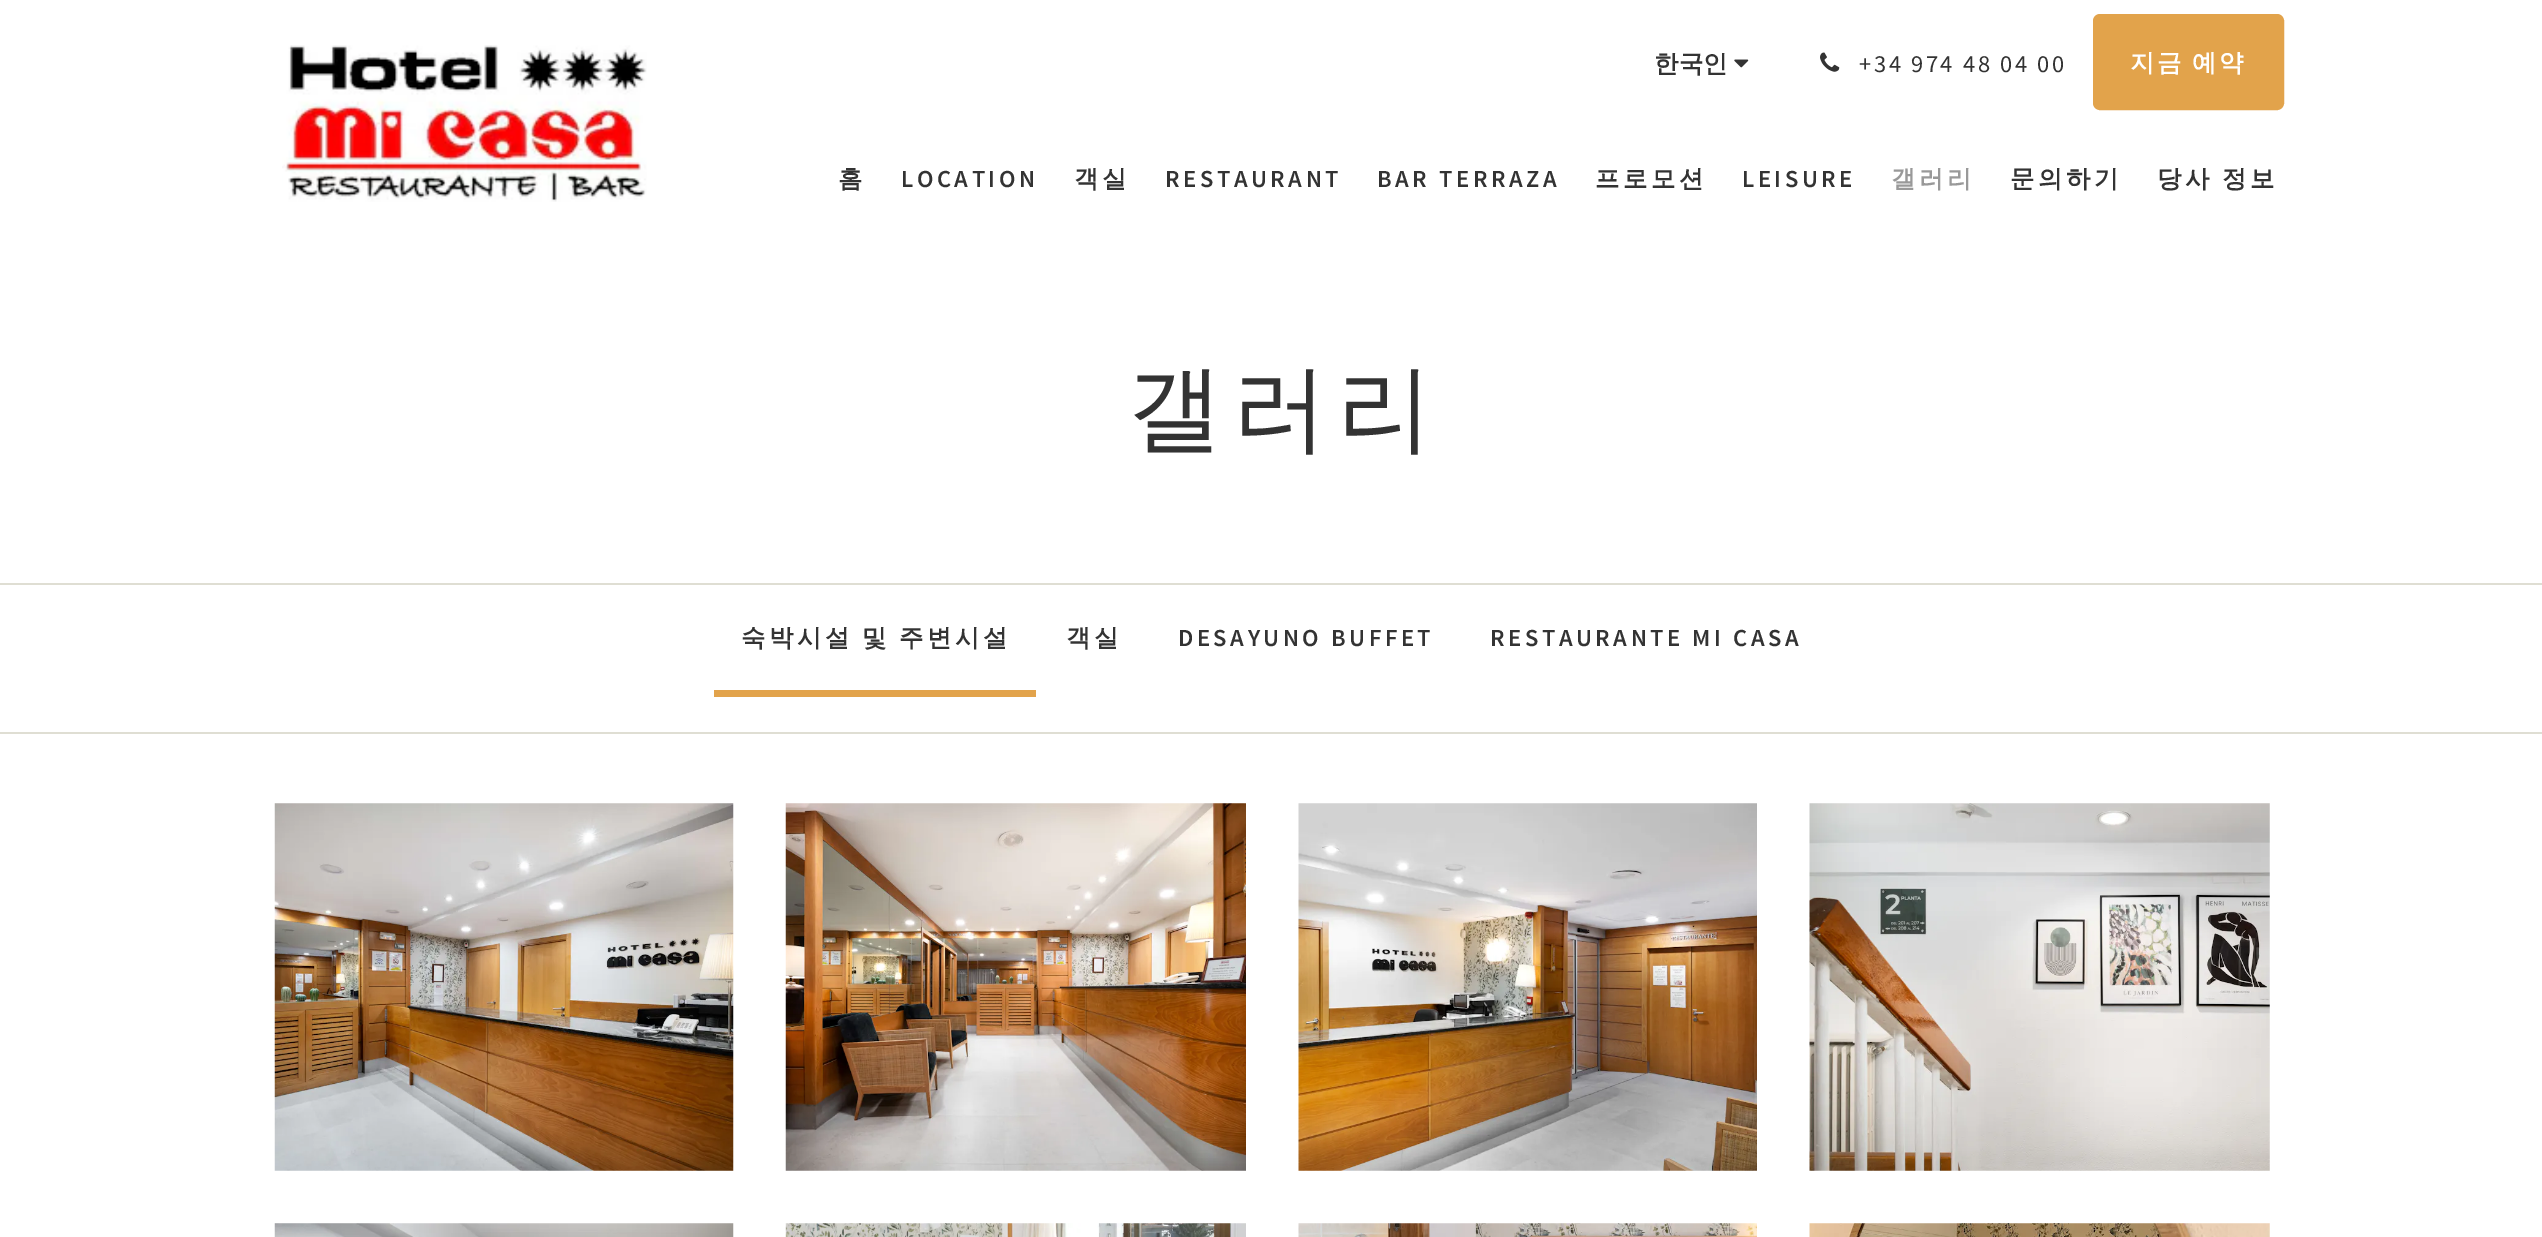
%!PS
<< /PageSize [2542 1237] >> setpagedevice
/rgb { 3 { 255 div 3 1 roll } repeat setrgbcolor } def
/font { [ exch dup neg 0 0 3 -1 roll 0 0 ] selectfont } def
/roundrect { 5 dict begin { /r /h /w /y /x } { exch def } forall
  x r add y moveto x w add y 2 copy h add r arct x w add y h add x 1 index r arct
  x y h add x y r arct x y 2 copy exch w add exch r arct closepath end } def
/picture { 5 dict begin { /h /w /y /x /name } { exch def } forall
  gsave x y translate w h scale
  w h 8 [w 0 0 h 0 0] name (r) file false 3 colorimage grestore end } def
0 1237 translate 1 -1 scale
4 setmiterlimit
255 255 255 rgb
0 0 2542 1237 rectfill
(img/1.rgb) 282 45 365 157 picture
(img/2.rgb) 1734 59 15 9 picture
(img/3.rgb) 1820 52 20 20 picture
226 163 75 rgb
2094 15 189 94 6 roundrect gsave fill grestore
2 setlinewidth
stroke
[
  [0 583 2542 2 223 222 211]
  [0 732 2542 2 223 222 211]
  [714 690 322 7 226 163 75]
] { aload pop rgb rectfill } forall
(img/4.rgb) 274 803 460 368 picture
(img/5.rgb) 785 803 461 368 picture
(img/6.rgb) 1298 803 459 368 picture
(img/7.rgb) 1809 803 461 368 picture
(img/8.rgb) 274 1223 460 14 picture
(img/9.rgb) 785 1223 461 14 picture
(img/10.rgb) 1298 1223 459 14 picture
(img/11.rgb) 1809 1223 461 14 picture
/WenQuanYiZenHei-Bold 24.5 font
51 51 51 rgb
1654 72 moveto (한국인) show
/SourceSansPro-Regular 24.5 font
1859 72 moveto 2.6 0 (+34 974 48 04 00) ashow
/WenQuanYiZenHei-Bold 24.5 font
255 255 255 rgb
2130 71 moveto -2 0 32 2.6 0 (지금 예약) awidthshow
51 51 51 rgb
838 187 moveto 3.5 0 (홈) ashow
/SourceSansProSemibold-SemiBold 24.5 font
901 187 moveto 3.5 0 (LOCATION) ashow
/WenQuanYiZenHei-Bold 24.5 font
1074 187 moveto 3.5 0 (객실) ashow
/SourceSansProSemibold-SemiBold 24.5 font
1165 187 moveto 3.5 0 (RESTAURANT) ashow
1377 187 moveto 3.5 0 (BAR TERRAZA) ashow
/WenQuanYiZenHei-Bold 24.5 font
1595 187 moveto 3.5 0 (프로모션) ashow
/SourceSansProSemibold-SemiBold 24.5 font
1742 187 moveto 3.5 0 (LEISURE) ashow
/WenQuanYiZenHei-Bold 24.5 font
153 153 153 rgb
1891 187 moveto 3.5 0 (갤러리) ashow
51 51 51 rgb
2010 187 moveto 3.5 0 (문의하기) ashow
2157 187 moveto -2 0 32 3.5 0 (당사 정보) awidthshow
/WenQuanYiZenHei-Medium 96 font
1127 441 moveto 9 0 (갤러리) ashow
/WenQuanYiZenHei-Bold 24.5 font
741 646 moveto -2 0 32 3.5 0 (숙박시설 및 주변시설) awidthshow
1066 646 moveto 3.5 0 (객실) ashow
/SourceSansProSemibold-SemiBold 24.5 font
1178 646 moveto 3.5 0 (DESAYUNO BUFFET) ashow
1490 646 moveto 3.5 0 (RESTAURANTE MI CASA) ashow
showpage
